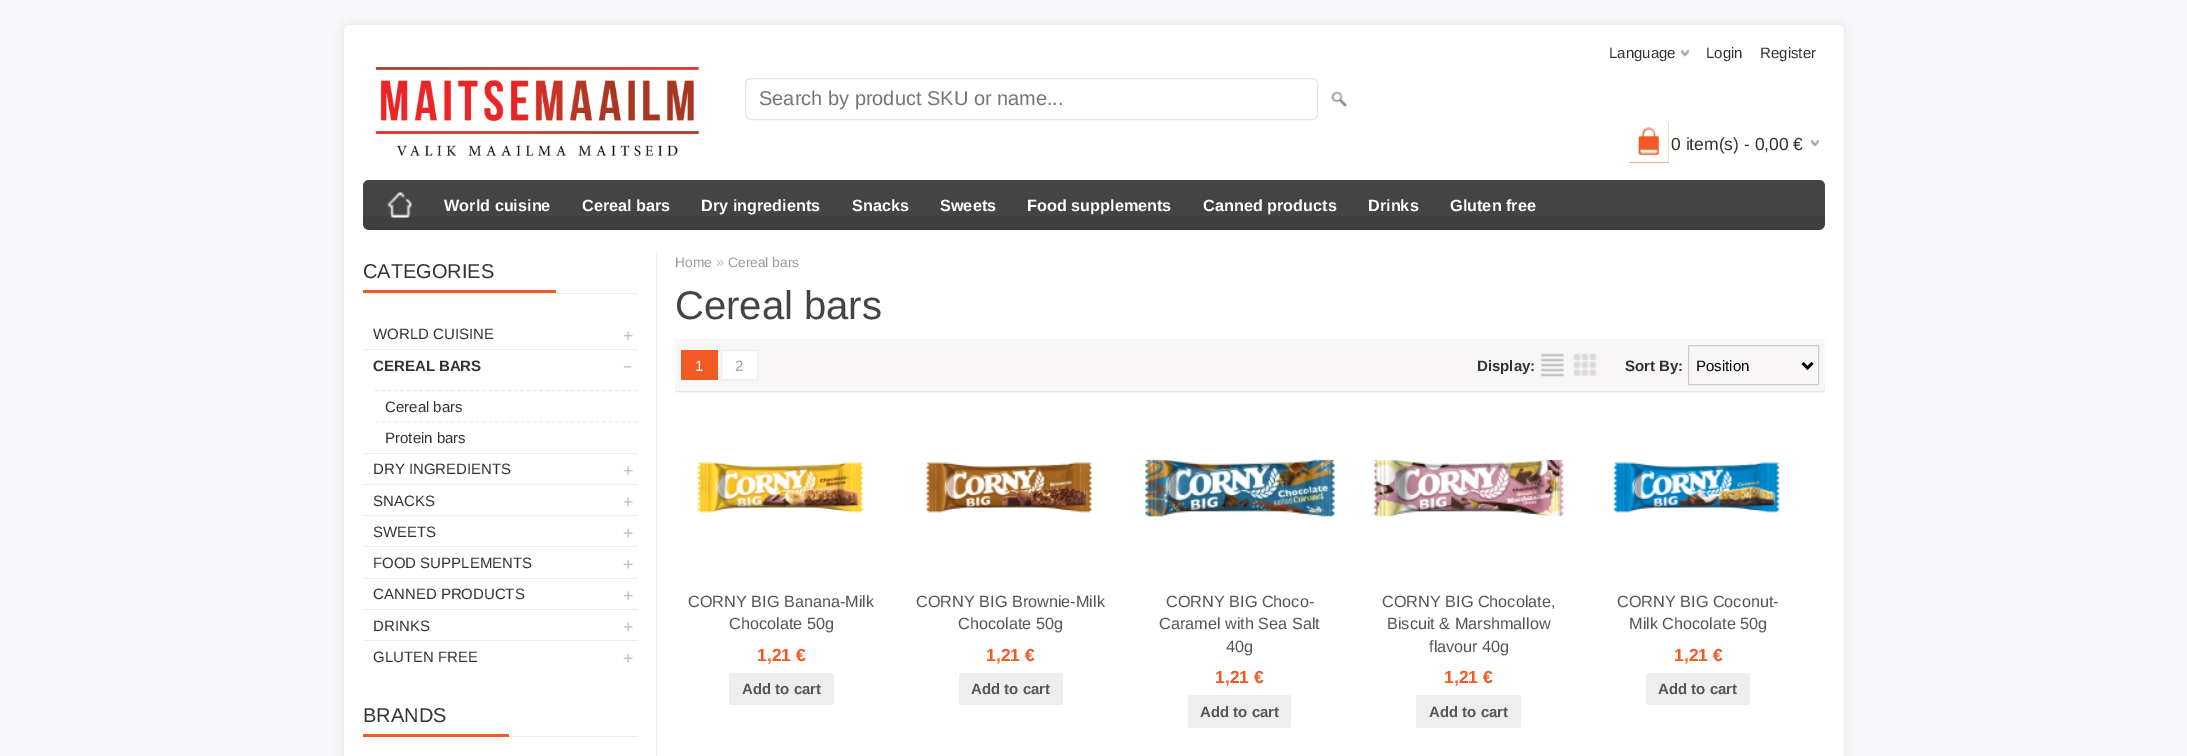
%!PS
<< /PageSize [2187 756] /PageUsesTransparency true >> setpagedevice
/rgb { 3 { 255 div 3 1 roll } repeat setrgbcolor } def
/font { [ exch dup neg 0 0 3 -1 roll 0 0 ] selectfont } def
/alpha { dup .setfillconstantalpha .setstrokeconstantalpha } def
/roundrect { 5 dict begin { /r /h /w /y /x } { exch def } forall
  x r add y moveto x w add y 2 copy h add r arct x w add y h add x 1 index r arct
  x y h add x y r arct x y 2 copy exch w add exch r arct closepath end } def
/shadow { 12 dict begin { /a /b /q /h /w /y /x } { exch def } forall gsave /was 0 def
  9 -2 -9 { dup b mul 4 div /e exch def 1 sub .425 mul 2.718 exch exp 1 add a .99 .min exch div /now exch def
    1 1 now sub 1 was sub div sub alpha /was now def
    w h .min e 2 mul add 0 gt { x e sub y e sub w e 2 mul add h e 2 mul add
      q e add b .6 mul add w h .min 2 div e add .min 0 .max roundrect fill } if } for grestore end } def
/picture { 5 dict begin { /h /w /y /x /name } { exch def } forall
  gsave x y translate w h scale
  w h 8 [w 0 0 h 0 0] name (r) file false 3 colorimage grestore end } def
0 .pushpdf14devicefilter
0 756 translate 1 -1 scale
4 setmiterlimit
248 248 250 rgb
0 0 2187 756 rectfill
0 0 0 rgb
344 25 1500 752 6 5 0.08 shadow
255 255 255 rgb
350 25 moveto 1838 25 lineto 1841.5 25 1844 27.5 1844 31 curveto 1844 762 lineto 344 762 lineto 344 31 lineto 344 27.5 346.5 25 350 25 curveto closepath fill
(img/1.rgb) 1681 50 8 7 picture
(img/2.rgb) 375 66 325 90 picture
228 228 228 rgb
745.5 78.5 572 41 5.5 roundrect stroke
(img/3.rgb) 1331 91 16 16 picture
241 90 35 rgb
1629 123 40 40 rectfill
(img/4.rgb) 1629 123 40 40 picture
(img/1.rgb) 1811 140 8 7 picture
68 68 68 rgb
363 180 1462 50 6 roundrect fill
(img/5.rgb) 363 216 1462 14 picture
(img/6.rgb) 387 192 25 26 picture
[
  [656 253 1 503 238 238 238]
  [363 293 275 1 238 238 238]
  [363 290 193 3 241 90 35]
] { aload pop rgb rectfill } forall
(img/7.rgb) 623 331 10 10 picture
238 238 238 rgb
363 349 275 1 rectfill
(img/8.rgb) 623 366 9 2 picture
1.2 setlinewidth
[3.75 2.56] 0 setdash
375 390.5 moveto 637.5 390.5 lineto stroke
375 422 moveto 637.5 422 lineto stroke
363 453 275 1 rectfill
(img/7.rgb) 623 466 10 10 picture
363 484 275 1 rectfill
(img/9.rgb) 623 497 10 10 picture
363 515 275 1 rectfill
(img/10.rgb) 623 528 10 10 picture
363 546 275 1 rectfill
(img/11.rgb) 623 560 10 9 picture
363 578 275 1 rectfill
(img/12.rgb) 623 591 10 10 picture
363 609 275 1 rectfill
(img/9.rgb) 623 622 10 10 picture
363 640 275 1 rectfill
(img/10.rgb) 623 653 10 10 picture
[
  [509 736 129 1 238 238 238]
  [363 734 146 3 241 90 35]
  [675 339 1150 54 248 246 246]
  [675 391 1150 1 228 228 228]
  [681 350 37 30 241 90 35]
] { aload pop rgb rectfill } forall
255 255 255 rgb
721.5 350.5 moveto 757.5 350.5 lineto 757.5 379.5 lineto 721.5 379.5 lineto closepath gsave fill grestore
238 238 238 rgb
1 setlinewidth
[] 0 setdash
stroke
(img/13.rgb) 1541 353 23 24 picture
(img/14.rgb) 1573 353 24 24 picture
204 204 204 rgb
1688.5 345.5 130 39 rectstroke
0 0 0 rgb
2.5 setlinewidth
1802.5 363 moveto 1807.5 368 lineto 1812.5 363 lineto stroke
(img/15.rgb) 697 462 167 51 picture
238 238 238 rgb
729 673 105 32 2.5 roundrect fill
(img/16.rgb) 926 462 167 51 picture
959 673 104 32 2.5 roundrect fill
(img/17.rgb) 1145 454 190 80 picture
1188 695 103 33 2.5 roundrect fill
(img/18.rgb) 1373 459 191 58 picture
1416 695 105 33 2.5 roundrect fill
(img/19.rgb) 1613 462 168 51 picture
1646 673 104 32 2.5 roundrect fill
/LiberationSans-Regular 15 font
51 51 51 rgb
[
  [(Language) 1609 58]
  [(Login) 1706 58]
  [(Register) 1760 58]
] { aload pop moveto show } forall
/LiberationSans-Regular 20 font
117 117 117 rgb
759 105 moveto (Search by product SKU or name...) show
/LiberationSans-Regular 17.5 font
51 51 51 rgb
1671 150 moveto (0 item\(s\) - 0,00 €) show
/LiberationSans-Bold 16.25 font
255 255 255 rgb
[
  [(World cuisine) 444 211]
  [(Cereal bars) 582 211]
  [(Dry ingredients) 701 211]
  [(Snacks) 852 211]
  [(Sweets) 940 211]
  [(Food supplements) 1027 211]
  [(Canned products) 1203 211]
  [(Drinks) 1368 211]
  [(Gluten free) 1450 211]
] { aload pop moveto show } forall
/LiberationSans-Regular 20 font
51 51 51 rgb
363 278 moveto (CATEGORIES) show
/LiberationSans-Regular 15 font
373 339 moveto (WORLD CUISINE) show
/LiberationSans-Bold 15 font
373 371 moveto (CEREAL BARS) show
/LiberationSans-Regular 15 font
[
  [(Cereal bars) 385 412]
  [(Protein bars) 385 443]
  [(DRY INGREDIENTS) 373 474]
  [(SNACKS) 373 506]
  [(SWEETS) 373 537]
  [(FOOD SUPPLEMENTS) 373 568]
  [(CANNED PRODUCTS) 373 599]
  [(DRINKS) 373 631]
  [(GLUTEN FREE) 373 662]
] { aload pop moveto show } forall
/LiberationSans-Regular 20 font
363 722 moveto (BRANDS) show
/LiberationSans-Regular 13.75 font
153 153 153 rgb
675 267 moveto (Home) show
/LiberationSans-Regular 15 font
194 194 194 rgb
716 267 moveto (») show
/LiberationSans-Regular 13.75 font
153 153 153 rgb
728 267 moveto (Cereal bars) show
/LiberationSans-Regular 40 font
68 68 68 rgb
675 319 moveto (Cereal bars) show
/LiberationSans-Regular 15 font
255 255 255 rgb
695 371 moveto (1) show
163 163 163 rgb
735 371 moveto (2) show
/LiberationSans-Bold 15 font
51 51 51 rgb
1477 371 moveto (Display:) show
1625 371 moveto (Sort By:) show
/LiberationSans-Regular 15 font
0 0 0 rgb
1696 371 moveto (Position) show
/LiberationSans-Regular 16.25 font
85 85 85 rgb
688 607 moveto (CORNY BIG Banana-Milk) show
729 629 moveto (Chocolate 50g) show
/LiberationSans-Bold 17.5 font
241 90 35 rgb
757 661 moveto (1,21 €) show
/LiberationSans-Bold 15 font
85 85 85 rgb
742 694 moveto (Add to cart) show
/LiberationSans-Regular 16.25 font
916 607 moveto (CORNY BIG Brownie-Milk) show
958 629 moveto (Chocolate 50g) show
/LiberationSans-Bold 17.5 font
241 90 35 rgb
986 661 moveto (1,21 €) show
/LiberationSans-Bold 15 font
85 85 85 rgb
971 694 moveto (Add to cart) show
/LiberationSans-Regular 16.25 font
[
  [(CORNY BIG Choco-) 1166 607]
  [(Caramel with Sea Salt) 1159 629]
  [(40g) 1226 652]
] { aload pop moveto show } forall
/LiberationSans-Bold 17.5 font
241 90 35 rgb
1215 683 moveto (1,21 €) show
/LiberationSans-Bold 15 font
85 85 85 rgb
1200 717 moveto (Add to cart) show
/LiberationSans-Regular 16.25 font
[
  [(CORNY BIG Chocolate,) 1382 607]
  [(Biscuit & Marshmallow) 1387 629]
  [(flavour 40g) 1429 652]
] { aload pop moveto show } forall
/LiberationSans-Bold 17.5 font
241 90 35 rgb
1444 683 moveto (1,21 €) show
/LiberationSans-Bold 15 font
85 85 85 rgb
1429 717 moveto (Add to cart) show
/LiberationSans-Regular 16.25 font
1617 607 moveto (CORNY BIG Coconut-) show
1629 629 moveto (Milk Chocolate 50g) show
/LiberationSans-Bold 17.5 font
241 90 35 rgb
1674 661 moveto (1,21 €) show
/LiberationSans-Bold 15 font
85 85 85 rgb
1658 694 moveto (Add to cart) show
.poppdf14devicefilter showpage
